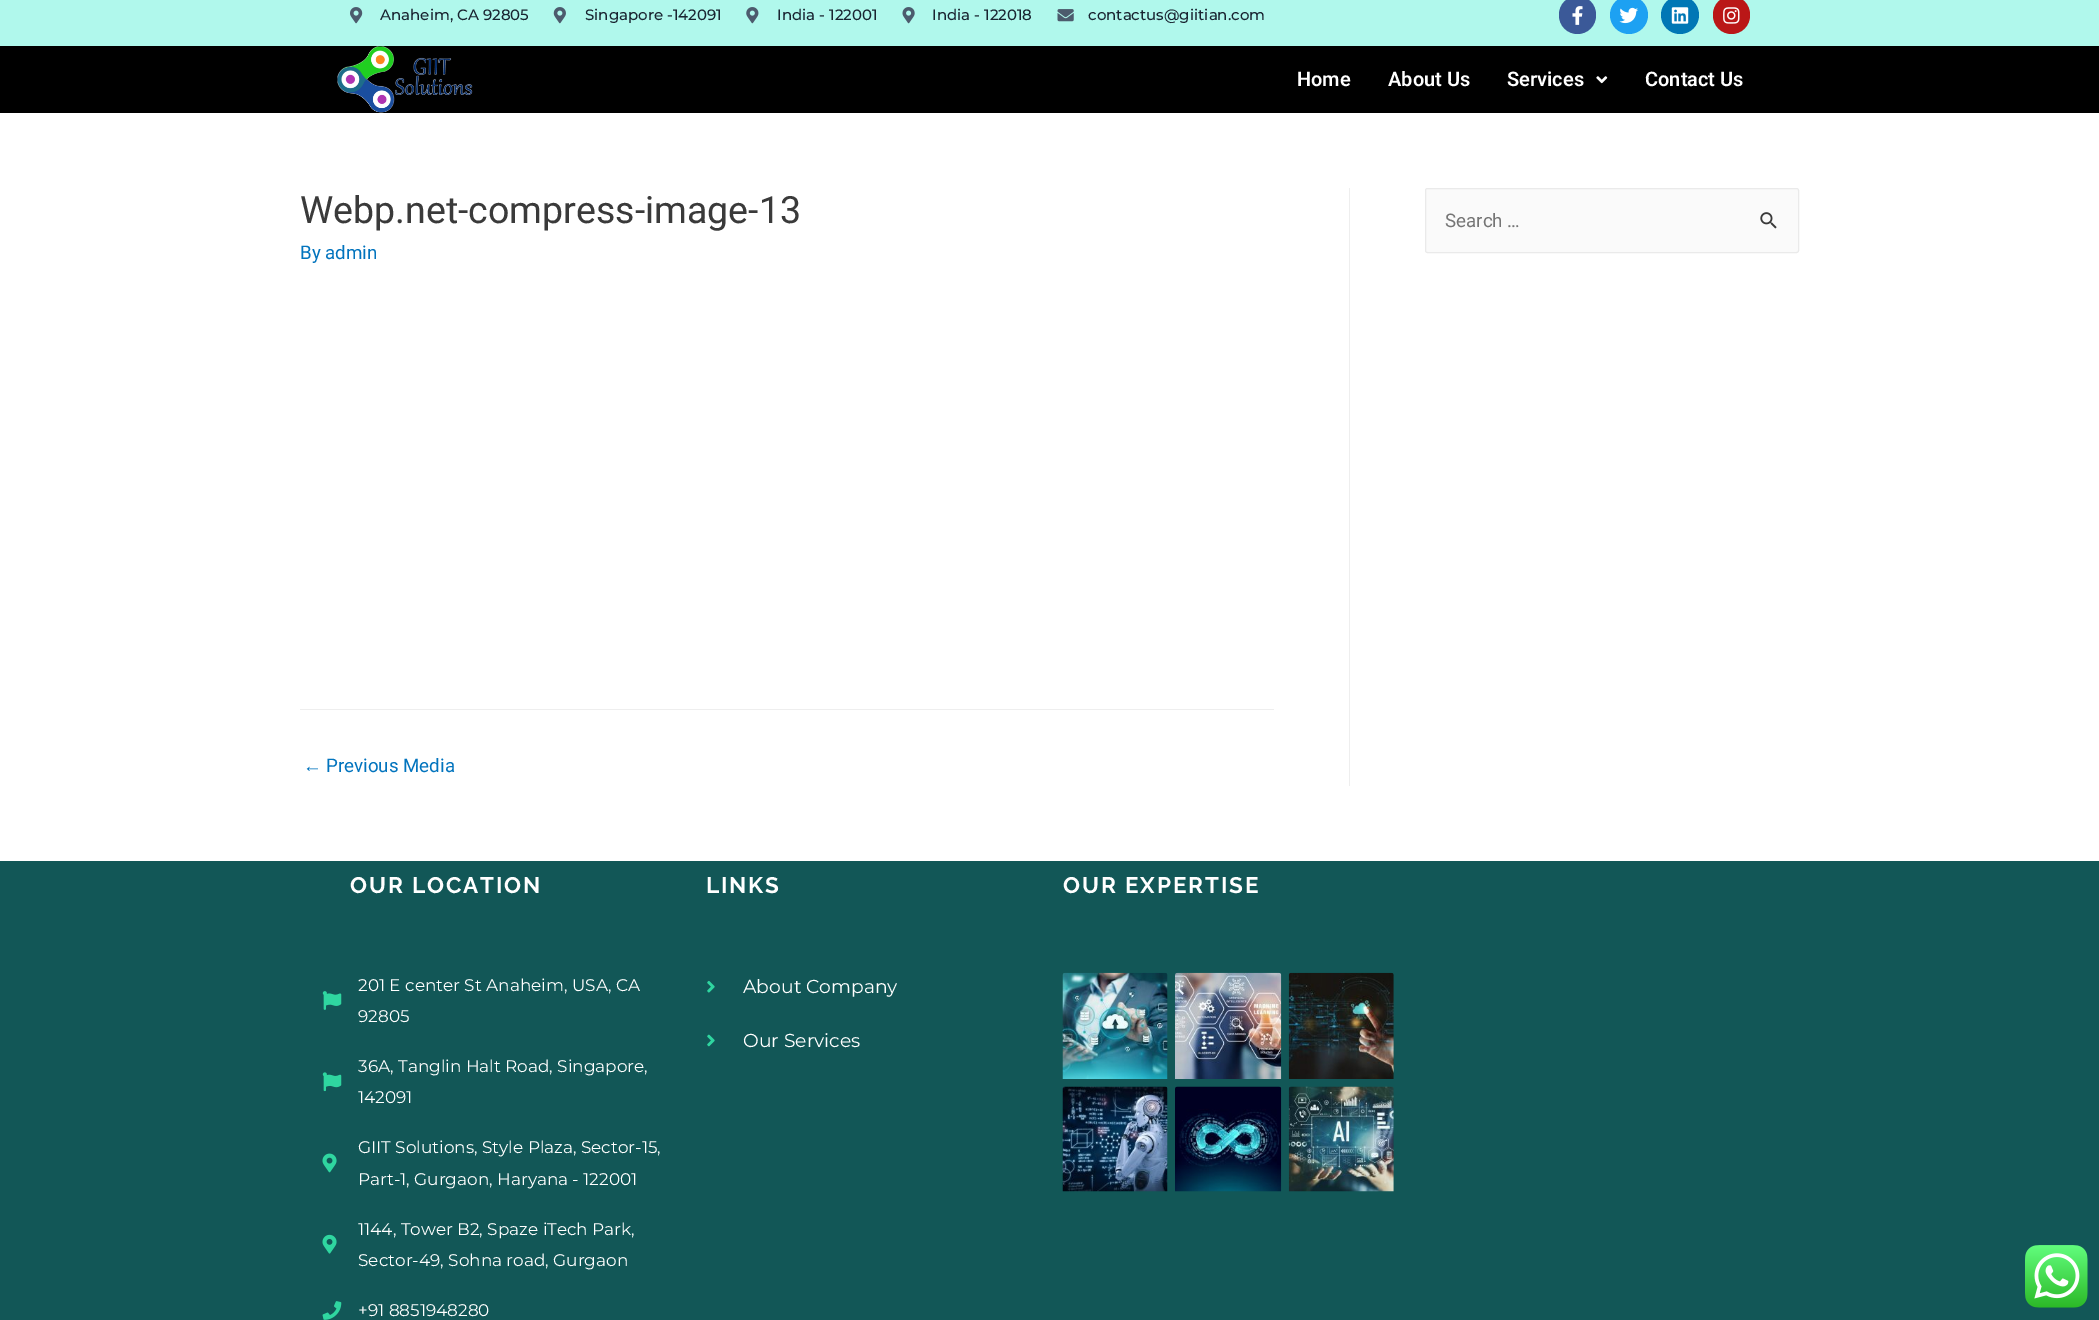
%!PS
<< /PageSize [2099 1320] >> setpagedevice
/rgb { 3 { 255 div 3 1 roll } repeat setrgbcolor } def
/font { [ exch dup neg 0 0 3 -1 roll 0 0 ] selectfont } def
/circle { newpath 0 360 arc closepath } def
/roundrect { 5 dict begin { /r /h /w /y /x } { exch def } forall
  x r add y moveto x w add y 2 copy h add r arct x w add y h add x 1 index r arct
  x y h add x y r arct x y 2 copy exch w add exch r arct closepath end } def
/picture { 5 dict begin { /h /w /y /x /name } { exch def } forall
  gsave x y translate w h scale
  w h 8 [w 0 0 h 0 0] name (r) file false 3 colorimage grestore end } def
0 1320 translate 1 -1 scale
4 setmiterlimit
255 255 255 rgb
0 0 2099 1320 rectfill
176 248 236 rgb
0 0 2099 46 rectfill
(img/1.rgb) 350 7 13 17 picture
(img/2.rgb) 553 7 13 17 picture
(img/3.rgb) 746 7 13 17 picture
(img/4.rgb) 902 7 13 17 picture
(img/5.rgb) 1057 9 17 13 picture
59 89 152 rgb
1559 -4 37 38 18.5 roundrect fill
(img/6.rgb) 1572 6 11 19 picture
29 161 242 rgb
1629 15 19 circle fill
(img/7.rgb) 1619 7 19 17 picture
0 119 181 rgb
1680 15 19 circle fill
(img/8.rgb) 1671 7 18 17 picture
186 23 23 rgb
1713 -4 37 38 18.5 roundrect fill
(img/9.rgb) 1723 7 17 17 picture
0 0 0 rgb
0 46 2099 67 rectfill
(img/10.rgb) 337 46 136 67 picture
(img/11.rgb) 1596 76 12 8 picture
238 238 238 rgb
1349 188 1 598 rectfill
300 709 974 1 rectfill
250 250 250 rgb
1425.5 188.5 373 64 2 roundrect gsave fill grestore
234 234 234 rgb
stroke
(img/12.rgb) 1760 212 17 17 picture
18 87 87 rgb
0 861 2099 459 rectfill
(img/13.rgb) 322 991 20 19 picture
(img/14.rgb) 322 1072 20 20 picture
(img/15.rgb) 322 1153 15 20 picture
(img/16.rgb) 322 1234 15 20 picture
(img/17.rgb) 322 1301 20 19 picture
(img/18.rgb) 707 980 8 13 picture
(img/19.rgb) 707 1034 8 13 picture
(img/20.rgb) 1062 972 106 107 picture
(img/21.rgb) 1175 972 107 107 picture
(img/22.rgb) 1288 972 106 107 picture
(img/23.rgb) 1062 1086 106 106 picture
(img/24.rgb) 1175 1086 107 106 picture
(img/25.rgb) 1288 1086 106 106 picture
(img/26.rgb) 2025 1245 63 63 picture
/Montserrat-Medium 15 font
25 36 49 rgb
[
  [(Anaheim, CA 92805) 380 20]
  [(Singapore -142091) 585 20]
  [(India - 122001) 777 20]
  [(India - 122018) 932 20]
  [(contactus@giitian.com) 1088 20]
] { aload pop moveto show } forall
/Roboto-SemiBold 20 font
255 255 255 rgb
[
  [(Home) 1297 86]
  [(About Us) 1388 86]
  [(Services) 1507 86]
  [(Contact Us) 1645 86]
] { aload pop moveto show } forall
/Roboto-Regular 37.5 font
58 58 58 rgb
300 223 moveto (Webp.net-compress-image-13) show
/Roboto-Regular 18.75 font
2 116 190 rgb
300 259 moveto (By admin) show
/LiberationSans-Regular 18.75 font
303 772 moveto (←) show
/Roboto-Regular 18.75 font
326 772 moveto (Previous Media) show
117 117 117 rgb
1445 227 moveto (Search …) show
/Raleway-Bold 22.5 font
255 255 255 rgb
350 893 moveto 1.9 0 (OUR LOCATION) ashow
/Montserrat-Regular 16.9 font
[
  [(201 E center St Anaheim, USA, CA) 358 991]
  [(92805) 358 1022]
  [(36A, Tanglin Halt Road, Singapore,) 358 1072]
  [(142091) 358 1103]
  [(GIIT Solutions, Style Plaza, Sector-15,) 358 1153]
  [(Part-1, Gurgaon, Haryana - 122001) 358 1185]
  [(1144, Tower B2, Spaze iTech Park,) 358 1235]
  [(Sector-49, Sohna road, Gurgaon) 358 1266]
  [(+91 8851948280) 358 1316]
] { aload pop moveto show } forall
/Raleway-Bold 22.5 font
706 893 moveto 1.9 0 (LINKS) ashow
/Montserrat-Regular 18.75 font
743 993 moveto (About Company) show
743 1047 moveto (Our Services) show
/Raleway-Bold 22.5 font
1063 893 moveto 1.9 0 (OUR EXPERTISE) ashow
showpage
